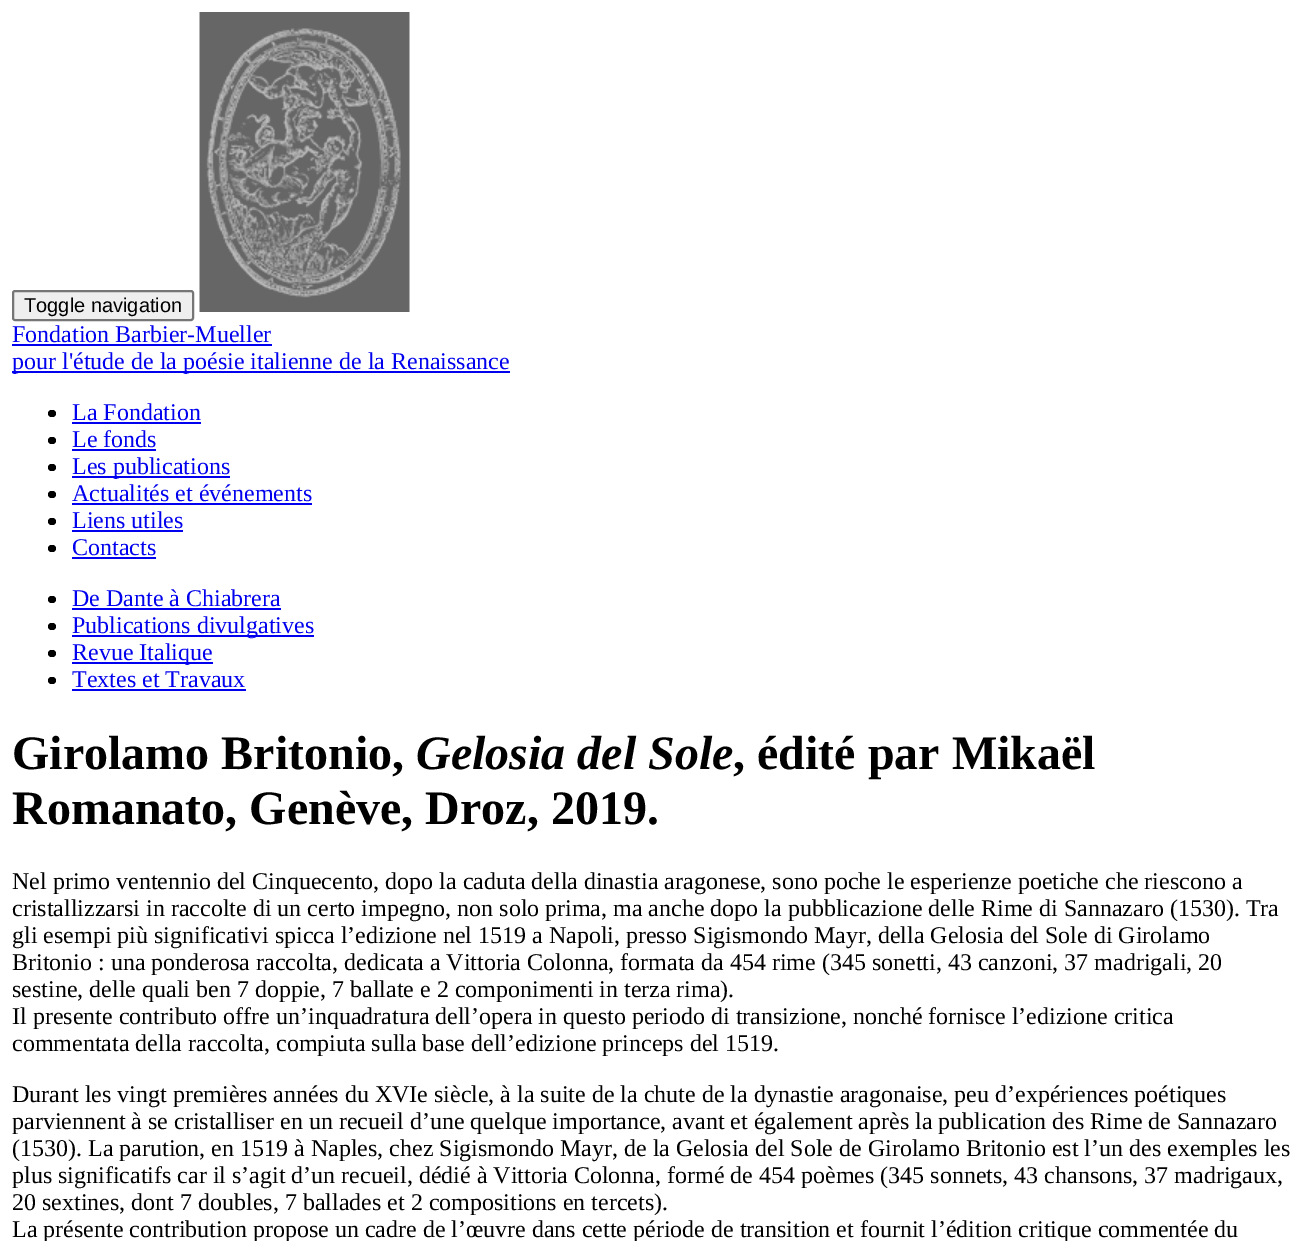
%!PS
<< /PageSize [1304 1241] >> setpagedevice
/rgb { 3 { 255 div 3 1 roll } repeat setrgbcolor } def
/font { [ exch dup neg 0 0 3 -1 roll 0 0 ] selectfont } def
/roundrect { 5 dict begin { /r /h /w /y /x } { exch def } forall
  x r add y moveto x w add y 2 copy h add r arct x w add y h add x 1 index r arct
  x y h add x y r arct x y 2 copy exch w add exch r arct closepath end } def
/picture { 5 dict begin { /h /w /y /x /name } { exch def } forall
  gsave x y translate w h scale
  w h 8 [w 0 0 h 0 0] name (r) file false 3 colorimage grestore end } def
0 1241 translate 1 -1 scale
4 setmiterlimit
255 255 255 rgb
0 0 1304 1241 rectfill
239 239 239 rgb
13 291 180 29 2 roundrect gsave fill grestore
118 118 118 rgb
2 setlinewidth
stroke
(img/1.rgb) 199 12 211 300 picture
0 0 238 rgb
12 344 260 2 rectfill
12 371 498 2 rectfill
0 0 0 rgb
48 410 8 7 3.5 roundrect fill
0 0 238 rgb
72 422 129 2 rectfill
0 0 0 rgb
48 437 8 7 3.5 roundrect fill
0 0 238 rgb
72 449 84 2 rectfill
0 0 0 rgb
48 464 8 7 3.5 roundrect fill
0 0 238 rgb
72 476 158 2 rectfill
0 0 0 rgb
48 491 8 7 3.5 roundrect fill
0 0 238 rgb
72 503 240 2 rectfill
0 0 0 rgb
48 518 8 7 3.5 roundrect fill
0 0 238 rgb
72 530 111 2 rectfill
0 0 0 rgb
48 545 8 7 3.5 roundrect fill
0 0 238 rgb
72 557 84 2 rectfill
0 0 0 rgb
48 596 8 7 3.5 roundrect fill
0 0 238 rgb
72 608 209 2 rectfill
0 0 0 rgb
48 623 8 7 3.5 roundrect fill
0 0 238 rgb
72 635 242 2 rectfill
0 0 0 rgb
48 650 8 7 3.5 roundrect fill
0 0 238 rgb
72 662 141 2 rectfill
0 0 0 rgb
48 677 8 7 3.5 roundrect fill
0 0 238 rgb
72 689 174 2 rectfill
/LiberationSans-Regular 20 font
0 0 0 rgb
24 312 moveto (Toggle navigation) show
/LiberationSerif-Regular 24 font
0 0 238 rgb
[
  [(Fondation Barbier-Mueller) 12 342]
  [(pour l'étude de la poésie italienne de la Renaissance) 12 369]
  [(La Fondation) 72 420]
  [(Le fonds) 72 447]
  [(Les publications) 72 474]
  [(Actualités et événements) 72 501]
  [(Liens utiles) 72 528]
  [(Contacts) 72 555]
  [(De Dante à Chiabrera) 72 606]
  [(Publications divulgatives) 72 633]
  [(Revue Italique) 72 660]
  [(Textes et Travaux) 72 687]
] { aload pop moveto show } forall
/LiberationSerif-Bold 48 font
0 0 0 rgb
12 769 moveto (Girolamo Britonio,) show
/LiberationSerif-BoldItalic 48 font
416 769 moveto (Gelosia del Sole) show
/LiberationSerif-Bold 48 font
733 769 moveto (, édité par Mikaël) show
12 824 moveto (Romanato, Genève, Droz, 2019.) show
/LiberationSerif-Regular 24 font
[
  [(Nel primo ventennio del Cinquecento, dopo la caduta della dinastia aragonese, sono poche le esperienze poetiche che riescono a) 12 889]
  [(cristallizzarsi in raccolte di un certo impegno, non solo prima, ma anche dopo la pubblicazione delle Rime di Sannazaro \(1530\). Tra) 12 916]
  [(gli esempi più significativi spicca l’edizione nel 1519 a Napoli, presso Sigismondo Mayr, della Gelosia del Sole di Girolamo) 12 943]
  [(Britonio : una ponderosa raccolta, dedicata a Vittoria Colonna, formata da 454 rime \(345 sonetti, 43 canzoni, 37 madrigali, 20) 12 970]
  [(sestine, delle quali ben 7 doppie, 7 ballate e 2 componimenti in terza rima\).) 12 997]
  [(Il presente contributo offre un’inquadratura dell’opera in questo periodo di transizione, nonché fornisce l’edizione critica) 12 1024]
  [(commentata della raccolta, compiuta sulla base dell’edizione princeps del 1519.) 12 1051]
  [(Durant les vingt premières années du XVIe siècle, à la suite de la chute de la dynastie aragonaise, peu d’expériences poétiques) 12 1102]
  [(parviennent à se cristalliser en un recueil d’une quelque importance, avant et également après la publication des Rime de Sannazaro) 12 1129]
  [(\(1530\). La parution, en 1519 à Naples, chez Sigismondo Mayr, de la Gelosia del Sole de Girolamo Britonio est l’un des exemples les) 12 1156]
  [(plus significatifs car il s’agit d’un recueil, dédié à Vittoria Colonna, formé de 454 poèmes \(345 sonnets, 43 chansons, 37 madrigaux,) 12 1183]
  [(20 sextines, dont 7 doubles, 7 ballades et 2 compositions en tercets\).) 12 1210]
  [(La présente contribution propose un cadre de l’œuvre dans cette période de transition et fournit l’édition critique commentée du) 12 1237]
] { aload pop moveto show } forall
showpage
